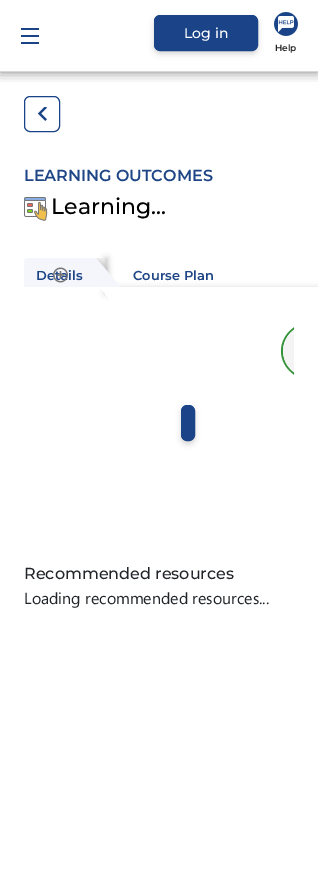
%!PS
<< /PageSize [318 871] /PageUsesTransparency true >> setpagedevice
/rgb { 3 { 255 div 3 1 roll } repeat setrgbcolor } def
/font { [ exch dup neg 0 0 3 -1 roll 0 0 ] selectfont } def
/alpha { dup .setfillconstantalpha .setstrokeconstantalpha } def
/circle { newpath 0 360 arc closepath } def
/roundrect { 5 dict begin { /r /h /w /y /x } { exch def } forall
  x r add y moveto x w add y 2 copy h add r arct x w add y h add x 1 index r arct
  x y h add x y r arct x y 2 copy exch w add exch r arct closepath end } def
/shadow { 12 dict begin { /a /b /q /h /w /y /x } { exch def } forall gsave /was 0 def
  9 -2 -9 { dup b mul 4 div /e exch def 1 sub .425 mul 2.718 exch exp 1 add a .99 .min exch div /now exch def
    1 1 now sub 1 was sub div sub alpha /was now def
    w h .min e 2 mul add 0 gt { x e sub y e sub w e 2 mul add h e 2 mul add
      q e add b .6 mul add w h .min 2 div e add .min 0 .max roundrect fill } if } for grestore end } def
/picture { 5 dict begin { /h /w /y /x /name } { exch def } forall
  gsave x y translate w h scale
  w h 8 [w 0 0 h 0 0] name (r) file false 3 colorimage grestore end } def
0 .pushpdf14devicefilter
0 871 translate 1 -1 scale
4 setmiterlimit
255 255 255 rgb
0 0 318 871 rectfill
gsave
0 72 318 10 rectclip
0 0 0 rgb
0 0 318 72 0 6 0.5 shadow
grestore
216 216 216 rgb
0 71 318 1 rectfill
27 68 136 rgb
21 28 18 2 0.5 roundrect fill
21 35 18 2 0.5 roundrect fill
21 42 18 2 0.5 roundrect fill
0 0 0 rgb
154 18 104 36 6 3 0.16 shadow
27 68 136 rgb
154.5 15.5 103 35 5.5 roundrect gsave fill grestore
stroke
(img/1.rgb) 274 12 24 24 picture
24.5 96.5 35 35 5.5 roundrect stroke
(img/2.rgb) 37 107 10 14 picture
(img/3.rgb) 24 197 24 24 picture
gsave
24 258 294 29 rectclip
0 0 0 rgb
24 258 82 29 27 3 0.2 shadow
24 288 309 524 6 3 0.2 shadow
grestore
244 246 252 rgb
28 258 moveto 82 258 lineto 98.5 258 112 271.5 112 288 curveto 112 287 lineto 24 287 lineto 24 262 lineto 24 260 26 258 28 258 curveto closepath fill
gsave
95 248 moveto 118 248 lineto 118 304 lineto 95 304 lineto closepath 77.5 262.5 moveto 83.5 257 lineto 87.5 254 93 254.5 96 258.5 curveto 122.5 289.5 lineto 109.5 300.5 lineto closepath eoclip newpath
0 0 0 rgb
105 258 3 36 2 3 0.2 shadow
grestore
gsave
24 287 270 323 rectclip
53 148 58 rgb
2 setlinewidth
309 351 27 circle stroke
grestore
(img/5.rgb) 283 329 11 44 picture
0 0 0 rgb
181 408 14 36 6 3 0.16 shadow
27 68 136 rgb
181.5 405.5 13 35 5.5 roundrect gsave fill grestore
stroke
/Montserrat-Medium 14 font
255 255 255 rgb
184 38 moveto (Log in) show
/Montserrat-SemiBold 9 font
34 34 34 rgb
275 51 moveto (Help) show
/Montserrat-SemiBold 16 font
30 69 133 rgb
24 181 moveto (LEARNING OUTCOMES) show
/Montserrat-Medium 22 font
0 0 0 rgb
51 214 moveto (Learning...) show
/Montserrat-SemiBold 13 font
30 69 133 rgb
36 280 moveto (Details) show
(img/4.rgb) 53 267 15 16 picture
gsave
24 258 294 29 rectclip
244 246 252 rgb
77 262 moveto 83 257 lineto 87 254 93 254 96 258 curveto 123 290 lineto 109 301 lineto closepath fill
grestore
133 280 moveto (Course Plan) show
/Montserrat-Medium 16 font
33 37 41 rgb
24 579 moveto (Recommended resources) show
/SegoeUI-Regular 16 font
24 604 moveto (Loading recommended resources...) show
.poppdf14devicefilter showpage
